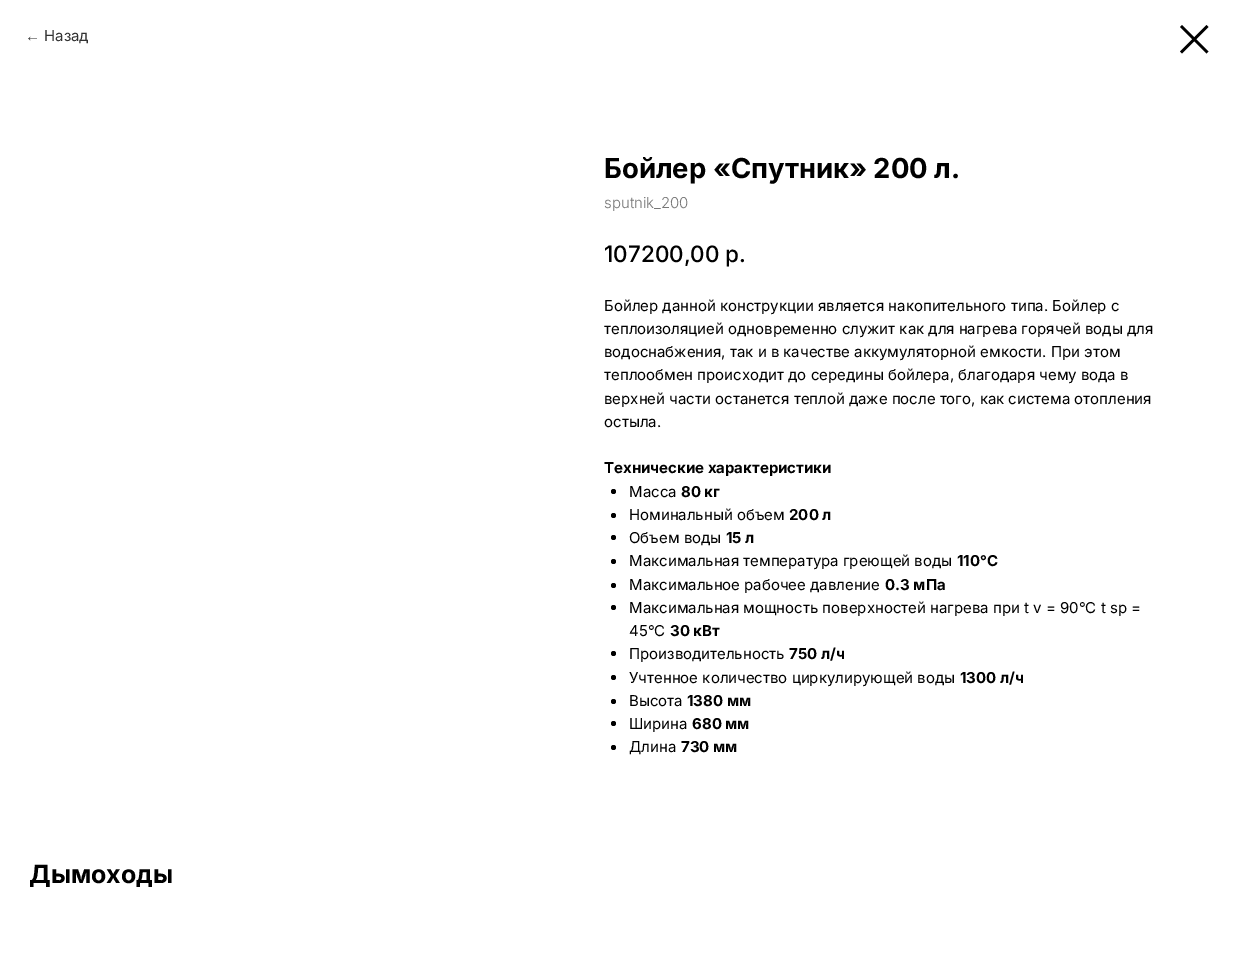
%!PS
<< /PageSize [1233 966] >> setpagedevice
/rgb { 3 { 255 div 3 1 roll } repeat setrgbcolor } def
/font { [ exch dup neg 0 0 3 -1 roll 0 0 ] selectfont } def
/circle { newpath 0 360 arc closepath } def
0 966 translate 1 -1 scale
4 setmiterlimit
255 255 255 rgb
0 0 1233 966 rectfill
0 0 0 rgb
1180 27 moveto 1182 25 lineto 1208.5 51.5 lineto 1206.5 53.5 lineto closepath eofill
1206.5 25 moveto 1208.5 27 lineto 1182 53.5 lineto 1180 51.5 lineto closepath eofill
613.5 491.5 2.5 circle fill
613.5 515.5 2.5 circle fill
613.5 537.5 2.5 circle fill
613.5 561.5 2.5 circle fill
613.5 585.5 2.5 circle fill
613.5 607.5 2.5 circle fill
613.5 653.5 2.5 circle fill
613.5 677.5 2.5 circle fill
613.5 701.5 2.5 circle fill
613.5 723.5 2.5 circle fill
613.5 747.5 2.5 circle fill
/LiberationSans-Regular 15 font
51 51 51 rgb
25 41 moveto (←) show
/Inter-Regular 15 font
44 41 moveto (Назад) show
/Inter-Bold 27.5 font
0 0 0 rgb
604 178 moveto (Бойлер «Спутник» 200 л.) show
/Inter-Light 15 font
119 119 119 rgb
604 208 moveto (sputnik_200) show
/Inter-Medium 22.5 font
0 0 0 rgb
604 262 moveto (107200,00 р.) show
/Inter-Regular 15 font
[
  [(Бойлер данной конструкции является накопительного типа. Бойлер с) 604 311]
  [(теплоизоляцией одновременно служит как для нагрева горячей воды для) 604 334]
  [(водоснабжения, так и в качестве аккумуляторной емкости. При этом) 604 357]
  [(теплообмен происходит до середины бойлера, благодаря чему вода в) 604 380]
  [(верхней части останется теплой даже после того, как система отопления) 604 404]
  [(остыла.) 604 427]
] { aload pop moveto show } forall
/Inter-Bold 15 font
604 473 moveto (Технические характеристики) show
/Inter-Regular 15 font
629 497 moveto (Масса) show
/Inter-Bold 15 font
681 497 moveto (80 кг) show
/Inter-Regular 15 font
629 520 moveto (Номинальный объем) show
/Inter-Bold 15 font
789 520 moveto (200 л) show
/Inter-Regular 15 font
629 543 moveto (Объем воды) show
/Inter-Bold 15 font
726 543 moveto (15 л) show
/Inter-Regular 15 font
629 566 moveto (Максимальная температура греющей воды) show
/Inter-Bold 15 font
957 566 moveto (110°С) show
/Inter-Regular 15 font
629 590 moveto (Максимальное рабочее давление) show
/Inter-Bold 15 font
885 590 moveto (0.3 мПа) show
/Inter-Regular 15 font
629 613 moveto (Максимальная мощность поверхностей нагрева при t v = 90°С t sp =) show
629 636 moveto (45°С) show
/Inter-Bold 15 font
670 636 moveto (30 кВт) show
/Inter-Regular 15 font
629 659 moveto (Производительность) show
/Inter-Bold 15 font
789 659 moveto (750 л/ч) show
/Inter-Regular 15 font
629 683 moveto (Учтенное количество циркулирующей воды) show
/Inter-Bold 15 font
960 683 moveto (1300 л/ч) show
/Inter-Regular 15 font
629 706 moveto (Высота) show
/Inter-Bold 15 font
687 706 moveto (1380 мм) show
/Inter-Regular 15 font
629 729 moveto (Ширина) show
/Inter-Bold 15 font
692 729 moveto (680 мм) show
/Inter-Regular 15 font
629 752 moveto (Длина) show
/Inter-Bold 15 font
681 752 moveto (730 мм) show
/Inter-Bold 25 font
29 883 moveto (Дымоходы) show
showpage
